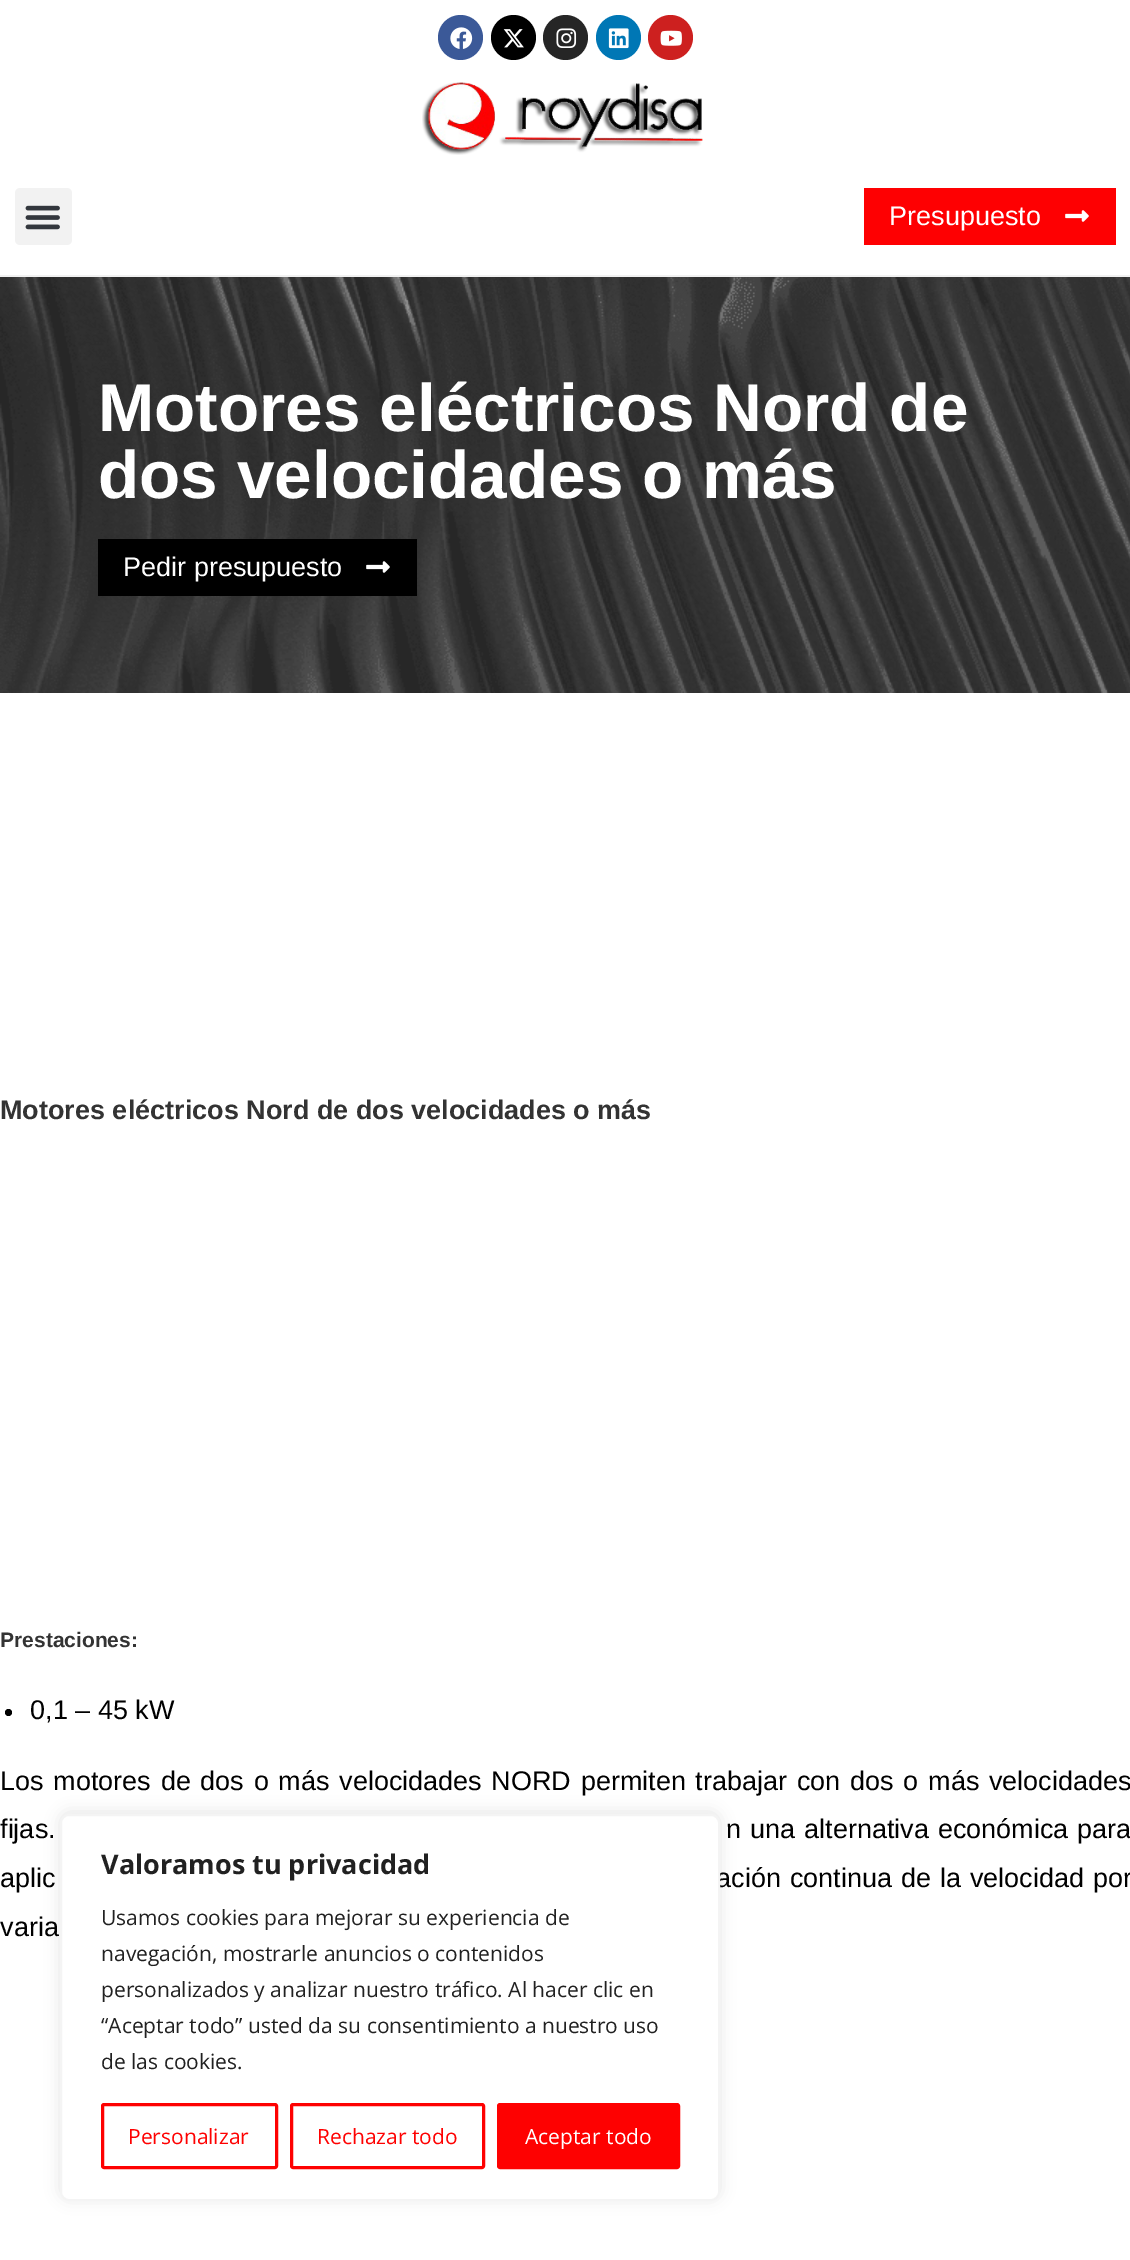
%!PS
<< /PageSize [1130 2260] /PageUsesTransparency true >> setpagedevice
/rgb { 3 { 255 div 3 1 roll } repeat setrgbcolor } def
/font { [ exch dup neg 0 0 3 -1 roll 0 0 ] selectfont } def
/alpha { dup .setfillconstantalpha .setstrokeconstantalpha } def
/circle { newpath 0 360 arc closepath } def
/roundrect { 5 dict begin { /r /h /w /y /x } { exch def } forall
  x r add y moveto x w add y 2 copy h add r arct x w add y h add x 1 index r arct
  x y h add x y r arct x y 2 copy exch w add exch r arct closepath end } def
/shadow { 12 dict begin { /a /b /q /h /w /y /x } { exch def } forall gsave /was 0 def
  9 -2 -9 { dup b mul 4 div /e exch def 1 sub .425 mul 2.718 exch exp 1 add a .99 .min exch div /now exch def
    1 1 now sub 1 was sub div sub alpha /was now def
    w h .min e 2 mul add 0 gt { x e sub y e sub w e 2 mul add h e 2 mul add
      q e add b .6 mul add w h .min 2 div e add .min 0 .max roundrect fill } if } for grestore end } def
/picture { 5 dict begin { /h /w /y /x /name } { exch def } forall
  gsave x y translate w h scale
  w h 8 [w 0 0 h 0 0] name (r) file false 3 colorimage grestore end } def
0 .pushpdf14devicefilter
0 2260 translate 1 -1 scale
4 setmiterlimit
255 255 255 rgb
0 0 1130 2260 rectfill
241 241 241 rgb
0 275 1130 2 rectfill
59 89 152 rgb
460.5 37.5 22.5 circle fill
(img/1.rgb) 450 27 23 22 picture
0 0 0 rgb
513.5 37.5 22.5 circle fill
(img/2.rgb) 503 29 21 19 picture
38 38 38 rgb
565.5 37.5 22.5 circle fill
(img/3.rgb) 556 28 21 20 picture
0 119 181 rgb
618.5 37.5 22.5 circle fill
(img/4.rgb) 608 28 21 21 picture
205 32 31 rgb
670.5 37.5 22.5 circle fill
(img/5.rgb) 660 30 22 16 picture
(img/6.rgb) 422 82 281 73 picture
242 242 242 rgb
15 188 57 57 5 roundrect fill
(img/7.rgb) 25 205 35 25 picture
254 0 2 rgb
864 188 252 57 rectfill
(img/8.rgb) 1065 210 24 12 picture
54 54 54 rgb
0 277 1130 416 rectfill
(img/9.rgb) 0 277 1130 416 picture
0 0 0 rgb
98 539 319 57 rectfill
(img/10.rgb) 366 561 24 12 picture
8.5 1712.5 3.5 circle fill
172 171 171 rgb
60 1812 660 387 9 7.5 0.3 shadow
/LiberationSans-Regular 27 font
255 255 255 rgb
889 225 moveto (Presupuesto) show
/LiberationSans-Bold 67.5 font
98 431 moveto (Motores eléctricos Nord de) show
98 498 moveto (dos velocidades o más) show
/LiberationSans-Regular 27 font
123 576 moveto (Pedir presupuesto) show
/LiberationSans-Bold 27 font
51 51 51 rgb
0 1119 moveto (Motores eléctricos Nord de dos velocidades o más) show
/LiberationSans-Bold 21 font
0 1647 moveto (Prestaciones:) show
/LiberationSans-Regular 27 font
0 0 0 rgb
30 1719 moveto (0,1 – 45 kW) show
0 1790 moveto 2.25 0 32 (Los motores de dos o más velocidades NORD permiten trabajar con dos o más velocidades) widthshow
0 1838 moveto 1.5 0 32 (fijas.) widthshow
726 1838 moveto 1.5 0 32 (n una alternativa económica para) widthshow
0 1887 moveto 1.5 0 32 (aplic) widthshow
716 1887 moveto 1.5 0 32 (ación continua de la velocidad por) widthshow
0 1936 moveto (varia) show
255 255 255 rgb
61 1815 658 385 8 roundrect gsave fill grestore
244 244 244 rgb
2 setlinewidth
stroke
/OpenSans-Bold 27 font
33 33 33 rgb
101 1874 moveto (Valoramos tu privacidad) show
/OpenSans-Regular 21 font
[
  [(Usamos cookies para mejorar su experiencia de) 101 1925]
  [(navegación, mostrarle anuncios o contenidos) 101 1961]
  [(personalizados y analizar nuestro tráfico. Al hacer clic en) 101 1997]
  [(“Aceptar todo” usted da su consentimiento a nuestro uso) 101 2033]
  [(de las cookies.) 101 2069]
] { aload pop moveto show } forall
254 1 1 rgb
3 setlinewidth
102.5 2104.5 174 63 1.5 roundrect stroke
128 2144 moveto (Personalizar) show
291.5 2104.5 192 63 1.5 roundrect stroke
317 2144 moveto (Rechazar todo) show
498.5 2104.5 180 63 1.5 roundrect gsave fill grestore
stroke
255 255 255 rgb
525 2144 moveto (Aceptar todo) show
.poppdf14devicefilter showpage
